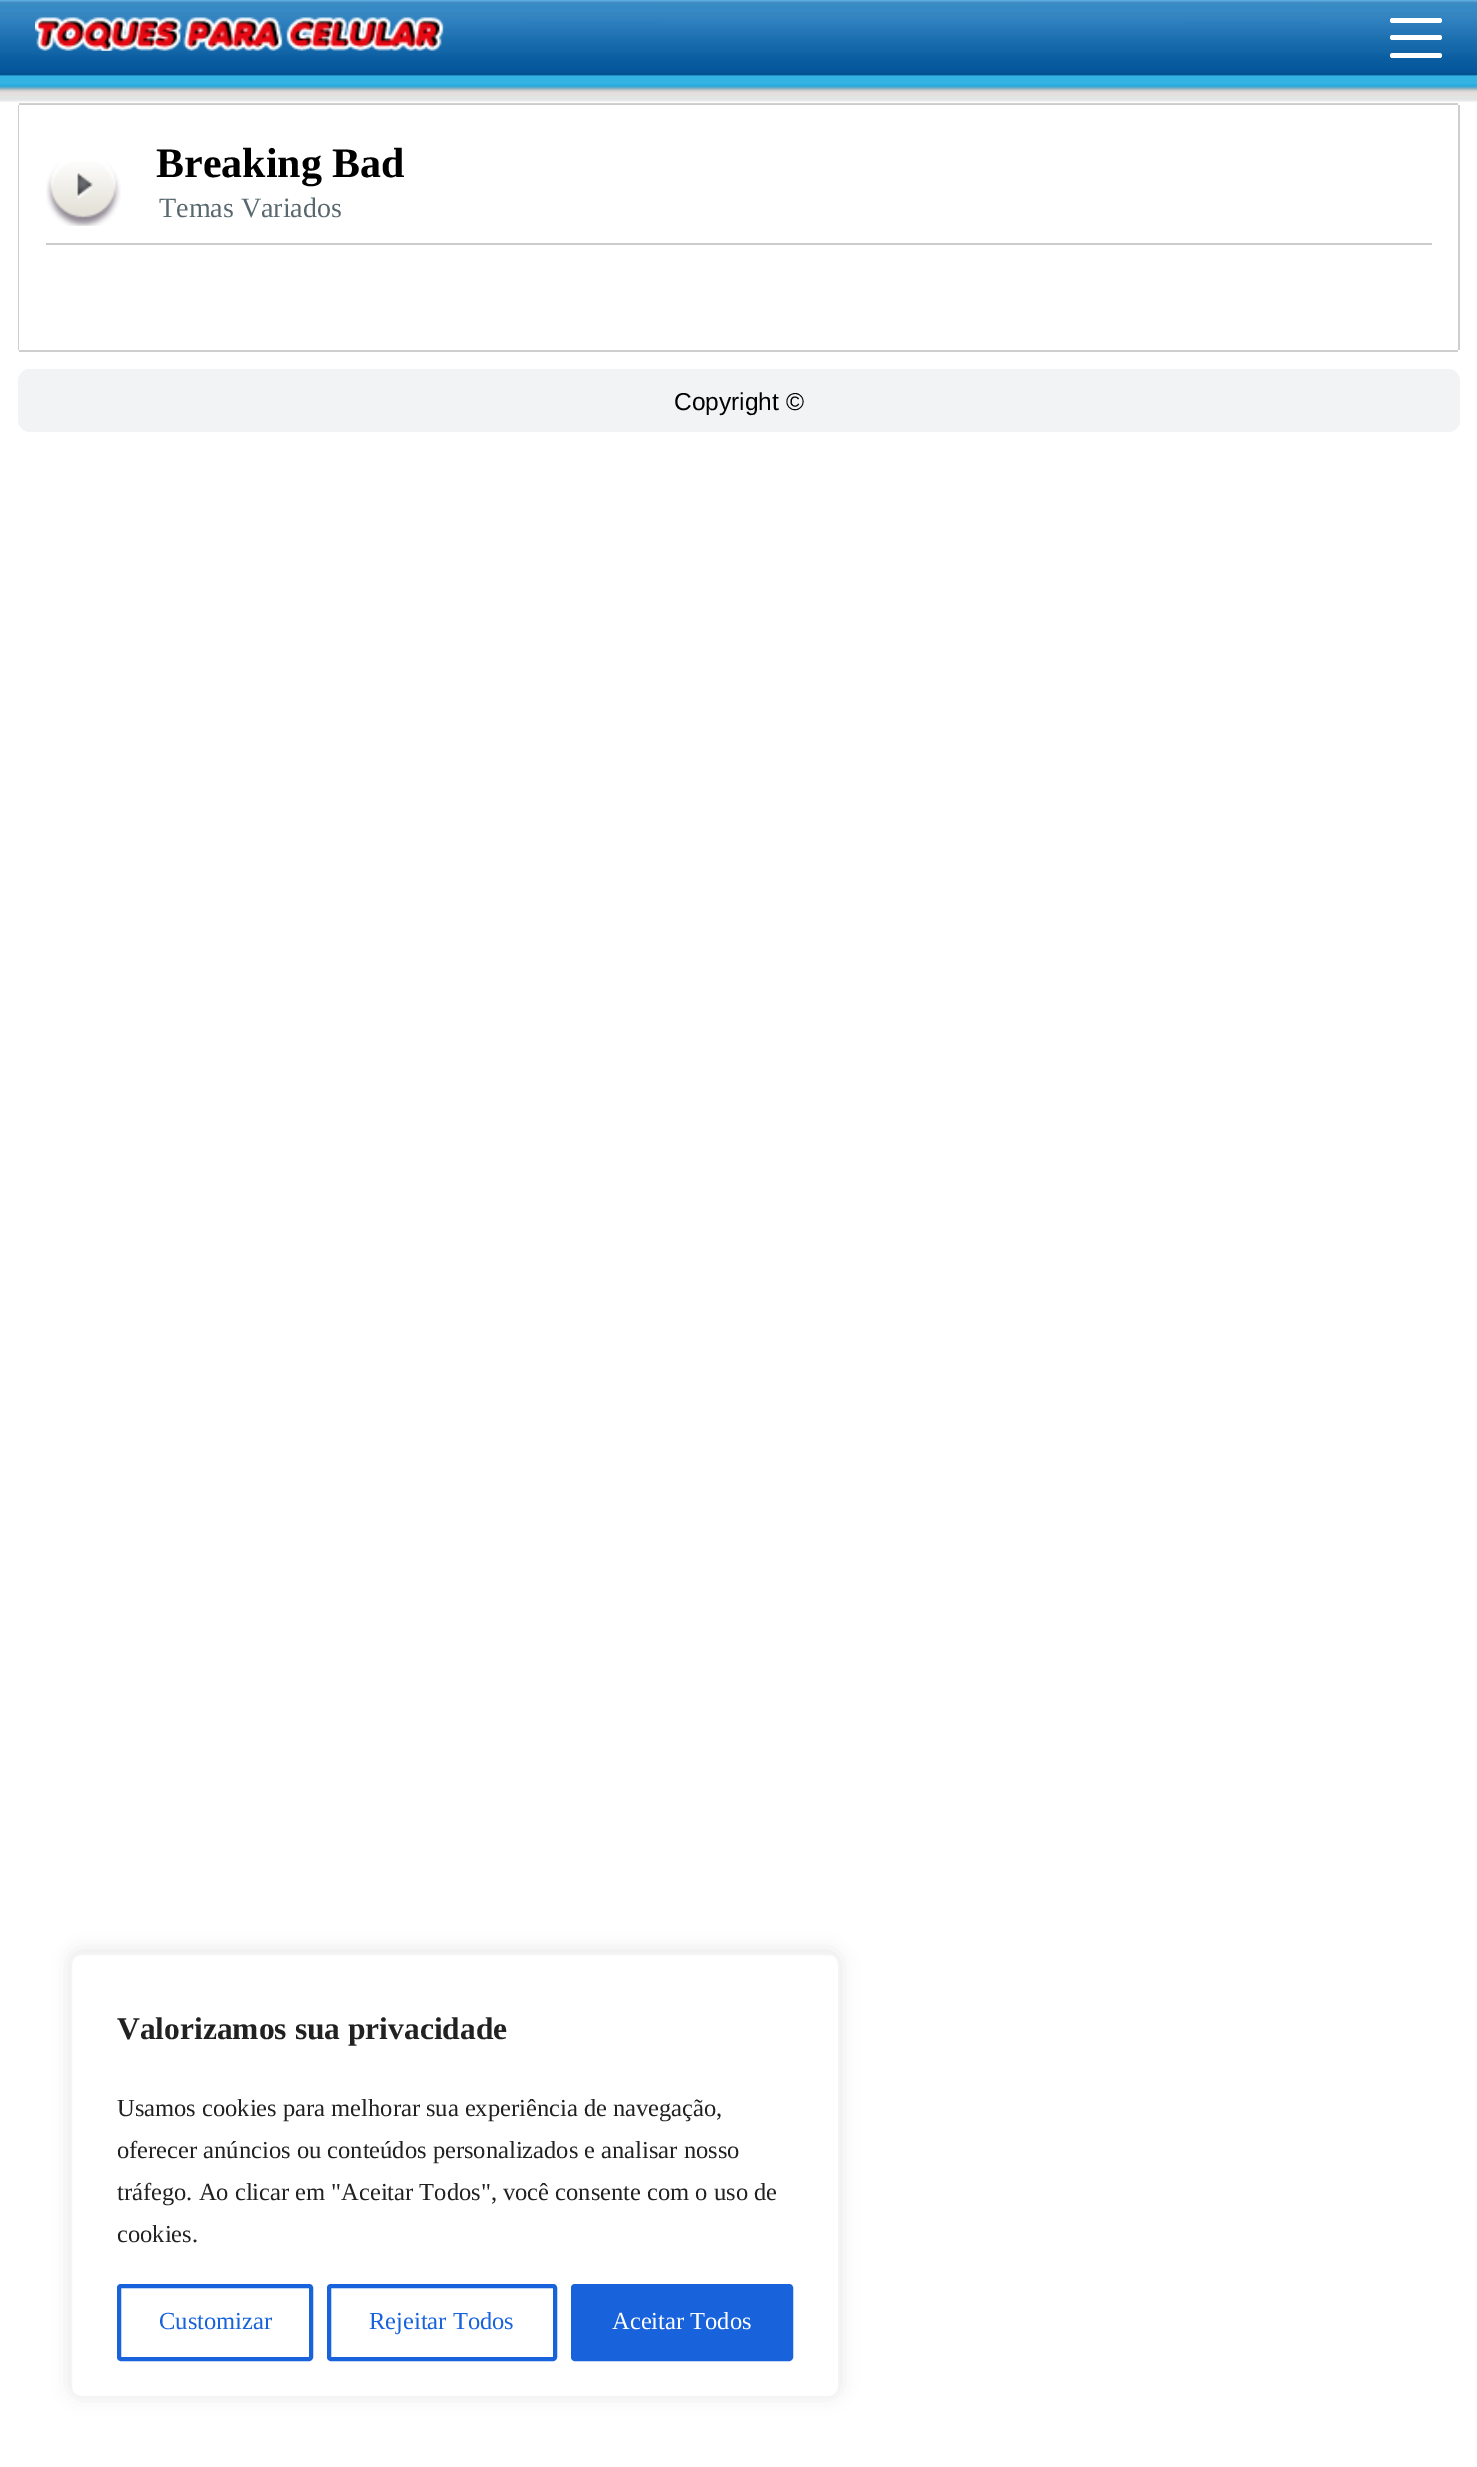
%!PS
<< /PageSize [1477 2467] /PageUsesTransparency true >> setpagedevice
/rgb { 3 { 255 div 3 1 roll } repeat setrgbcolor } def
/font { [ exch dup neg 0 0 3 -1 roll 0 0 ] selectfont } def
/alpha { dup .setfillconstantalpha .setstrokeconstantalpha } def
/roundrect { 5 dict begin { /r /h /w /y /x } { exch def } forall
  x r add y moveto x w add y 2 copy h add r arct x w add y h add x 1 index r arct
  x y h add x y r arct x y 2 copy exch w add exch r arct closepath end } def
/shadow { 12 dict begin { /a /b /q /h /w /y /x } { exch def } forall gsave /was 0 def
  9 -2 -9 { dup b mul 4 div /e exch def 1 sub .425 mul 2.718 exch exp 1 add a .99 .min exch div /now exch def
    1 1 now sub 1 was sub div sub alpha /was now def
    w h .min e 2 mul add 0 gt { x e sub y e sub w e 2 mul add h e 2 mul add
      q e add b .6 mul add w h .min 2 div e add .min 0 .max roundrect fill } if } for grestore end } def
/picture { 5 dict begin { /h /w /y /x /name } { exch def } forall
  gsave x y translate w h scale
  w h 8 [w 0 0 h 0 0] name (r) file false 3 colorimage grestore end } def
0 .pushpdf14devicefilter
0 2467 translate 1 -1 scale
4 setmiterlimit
255 255 255 rgb
0 0 1477 2467 rectfill
204 204 204 rgb
19 103 1439 2 rectfill
(img/1.rgb) 0 0 1477 104 picture
(img/2.rgb) 35 17 409 34 picture
255 255 255 rgb
1390 35 52 5 2.5 roundrect fill
1390 18 52 5 2.5 roundrect fill
1390 53 52 5 2.5 roundrect fill
206 206 206 rgb
18 105 1 245 rectfill
(img/3.rgb) 46 162 75 64 picture
[
  [46 243 1386 2 204 204 204]
  [1458 105 2 245 206 206 206]
  [19 350 1439 2 206 206 206]
] { aload pop rgb rectfill } forall
241 243 244 rgb
18 369 1442 63 12 roundrect fill
172 171 171 rgb
70 1951 770 445 11 9 0.3 shadow
255 255 255 rgb
71 1954 768 443 10 roundrect gsave fill grestore
244 244 244 rgb
2 setlinewidth
stroke
24 99 220 rgb
4 setlinewidth
119 2286 192 73 2 roundrect stroke
329 2286 226 73 2 roundrect stroke
573 2286 218 73 2 roundrect gsave fill grestore
stroke
/LiberationSerif-Bold 42 font
0 0 0 rgb
156 177 moveto (Breaking Bad) show
/LiberationSerif-Regular 28 font
89 104 111 rgb
159 217 moveto (Temas Variados) show
/LiberationSans-Regular 24.5 font
0 0 0 rgb
674 410 moveto (Copyright ©) show
/LiberationSerif-Bold 31.5 font
33 33 33 rgb
117 2039 moveto (Valorizamos sua privacidade) show
/LiberationSerif-Regular 24.5 font
[
  [(Usamos cookies para melhorar sua experiência de navegação,) 117 2116]
  [(oferecer anúncios ou conteúdos personalizados e analisar nosso) 117 2158]
  [(tráfego. Ao clicar em "Aceitar Todos", você consente com o uso de) 117 2200]
  [(cookies.) 117 2242]
] { aload pop moveto show } forall
24 99 220 rgb
159 2329 moveto (Customizar) show
369 2329 moveto (Rejeitar Todos) show
255 255 255 rgb
612 2329 moveto (Aceitar Todos) show
.poppdf14devicefilter showpage
